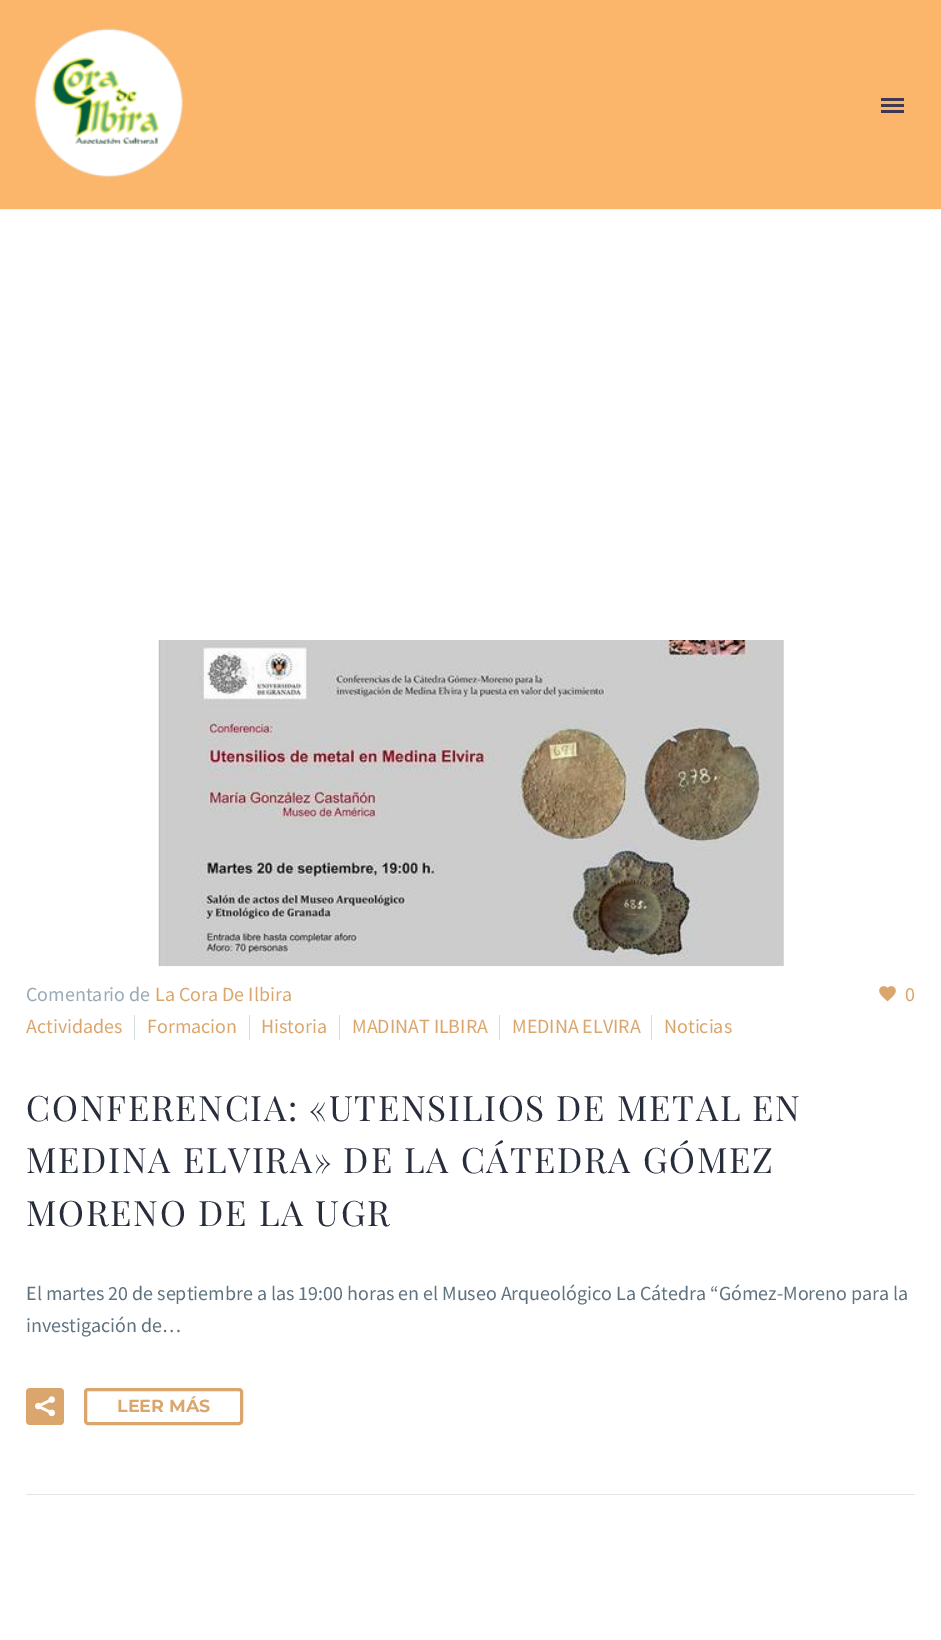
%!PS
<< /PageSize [941 1640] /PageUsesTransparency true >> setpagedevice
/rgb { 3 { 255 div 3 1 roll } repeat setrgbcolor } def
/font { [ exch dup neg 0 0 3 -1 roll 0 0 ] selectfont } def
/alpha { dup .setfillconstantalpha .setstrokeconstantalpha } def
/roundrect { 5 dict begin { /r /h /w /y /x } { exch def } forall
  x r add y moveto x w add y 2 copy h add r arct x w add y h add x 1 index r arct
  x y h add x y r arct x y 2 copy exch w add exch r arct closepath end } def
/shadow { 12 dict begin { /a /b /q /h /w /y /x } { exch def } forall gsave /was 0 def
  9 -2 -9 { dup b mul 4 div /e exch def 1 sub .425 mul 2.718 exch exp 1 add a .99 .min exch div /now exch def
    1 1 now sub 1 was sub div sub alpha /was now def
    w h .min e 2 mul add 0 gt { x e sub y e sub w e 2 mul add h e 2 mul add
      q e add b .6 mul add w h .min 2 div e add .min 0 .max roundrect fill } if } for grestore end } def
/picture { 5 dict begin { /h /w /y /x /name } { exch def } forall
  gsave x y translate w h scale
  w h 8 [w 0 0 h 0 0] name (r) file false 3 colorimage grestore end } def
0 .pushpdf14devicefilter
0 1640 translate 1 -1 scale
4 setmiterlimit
247 196 142 rgb
0 0 941 1640 rectfill
255 255 255 rgb
0 209 941 1431 rectfill
gsave
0 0 moveto 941 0 lineto 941 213 lineto 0 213 lineto closepath 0 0 moveto 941 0 lineto 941 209 lineto 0 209 lineto closepath eoclip newpath
56 69 84 rgb
0 0 941 209 0 1 0.2 shadow
grestore
0.65 alpha
255 175 89 rgb
0 0 941 209 rectfill
1 alpha
(img/1.rgb) 34 28 149 150 picture
[
  [881 98 23 3 60 57 80]
  [881 104 23 3 60 57 80]
  [881 110 23 3 60 57 80]
  [26 1494 889 1 223 229 232]
] { aload pop rgb rectfill } forall
(img/2.rgb) 158 640 626 327 picture
[
  [134 1015 1 25 212 222 225]
  [249 1015 1 25 212 222 225]
  [339 1015 1 25 212 222 225]
  [499 1015 1 25 212 222 225]
  [651 1015 1 25 212 222 225]
] { aload pop rgb rectfill } forall
(img/3.rgb) 879 986 17 16 picture
219 166 109 rgb
26 1388 38 37 4 roundrect fill
(img/4.rgb) 35 1396 20 21 picture
3 setlinewidth
85.5 1389.5 156 34 2.5 roundrect stroke
/SourceSansPro-Regular 20 font
153 169 181 rgb
26 1001 moveto (Comentario de) show
219 166 109 rgb
[
  [(La Cora De Ilbira) 155 1001]
  [(Actividades) 26 1033]
  [(Formacion) 147 1033]
  [(Historia) 261 1033]
  [(MADINAT ILBIRA) 352 1033]
  [(MEDINA ELVIRA) 512 1033]
  [(Noticias) 664 1033]
  [(0) 905 1001]
] { aload pop moveto show } forall
/PlayfairDisplay-Regular 35 font
40 45 60 rgb
26 1121 moveto 1.75 0 (CONFERENCIA: «UTENSILIOS DE METAL EN) ashow
26 1173 moveto 1.75 0 (MEDINA ELVIRA» DE LA CÁTEDRA GÓMEZ) ashow
26 1226 moveto 1.75 0 (MORENO DE LA UGR) ashow
/SourceSansPro-Regular 20 font
95 114 127 rgb
26 1300 moveto (El martes 20 de septiembre a las 19:00 horas en el Museo Arqueológico La Cátedra “Gómez-Moreno para la) show
26 1332 moveto (investigación de…) show
/Montserrat-Bold 17.5 font
219 166 109 rgb
117 1412 moveto (LEER MÁS) show
.poppdf14devicefilter showpage
